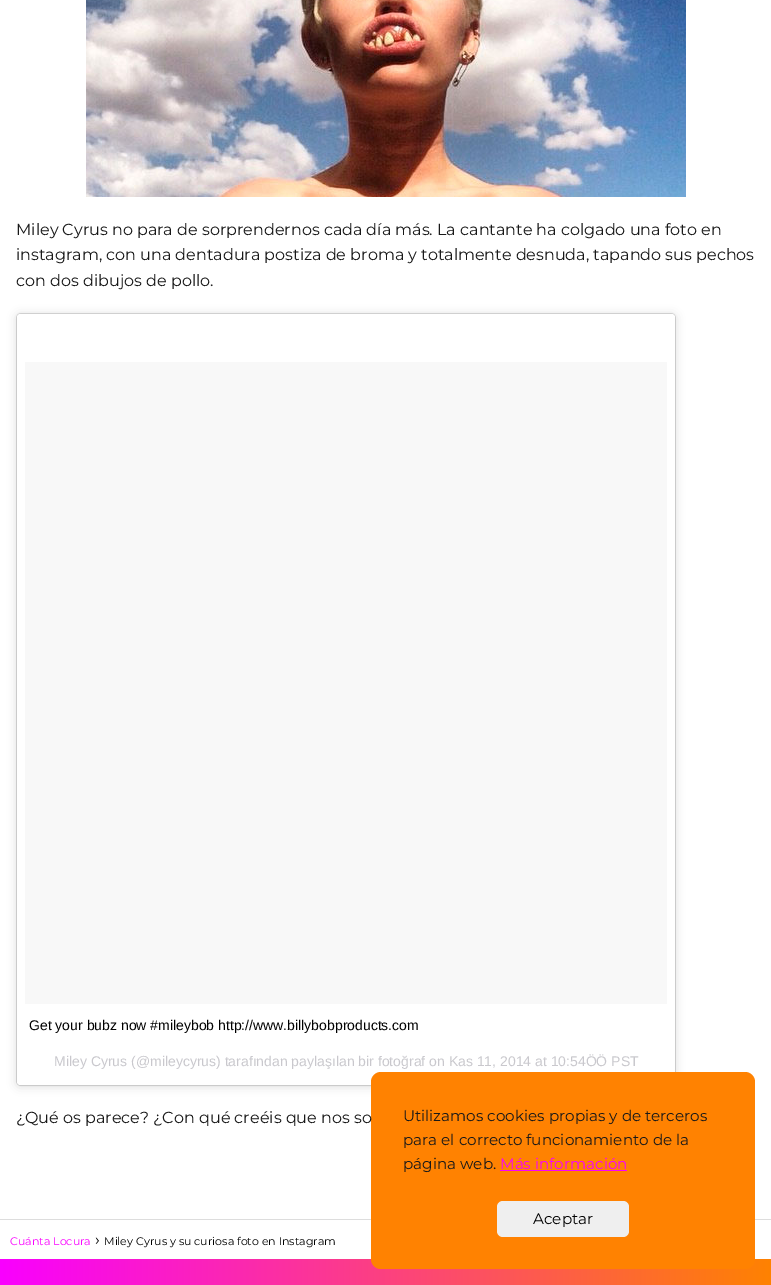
%!PS
<< /PageSize [771 1285] /PageUsesTransparency true >> setpagedevice
/rgb { 3 { 255 div 3 1 roll } repeat setrgbcolor } def
/font { [ exch dup neg 0 0 3 -1 roll 0 0 ] selectfont } def
/alpha { dup .setfillconstantalpha .setstrokeconstantalpha } def
/roundrect { 5 dict begin { /r /h /w /y /x } { exch def } forall
  x r add y moveto x w add y 2 copy h add r arct x w add y h add x 1 index r arct
  x y h add x y r arct x y 2 copy exch w add exch r arct closepath end } def
/shadow { 12 dict begin { /a /b /q /h /w /y /x } { exch def } forall gsave /was 0 def
  9 -2 -9 { dup b mul 4 div /e exch def 1 sub .425 mul 2.718 exch exp 1 add a .99 .min exch div /now exch def
    1 1 now sub 1 was sub div sub alpha /was now def
    w h .min e 2 mul add 0 gt { x e sub y e sub w e 2 mul add h e 2 mul add
      q e add b .6 mul add w h .min 2 div e add .min 0 .max roundrect fill } if } for grestore end } def
/picture { 5 dict begin { /h /w /y /x /name } { exch def } forall
  gsave x y translate w h scale
  w h 8 [w 0 0 h 0 0] name (r) file false 3 colorimage grestore end } def
0 .pushpdf14devicefilter
0 1285 translate 1 -1 scale
4 setmiterlimit
255 255 255 rgb
0 0 771 1285 rectfill
(img/1.rgb) 86 0 600 197 picture
0 0 0 rgb
17 315 658 771 3 5 0.15 shadow
17 314 658 771 3 0.5 0.5 shadow
255 255 255 rgb
17 314 658 771 3 roundrect fill
248 248 248 rgb
25 362 642 642 rectfill
221 221 221 rgb
0 1219 771 1 rectfill
gsave 0 1259 moveto 771 1259 lineto 771 1285 lineto 0 1285 lineto closepath clip newpath
<< /ShadingType 2 /ColorSpace /DeviceRGB /Coords [0 1284 771 1284] /Extend [true true] /Function << /FunctionType 2 /Domain [0 1] /C0 [0.976 0 1] /C1 [1 0.51 0.004] /N 1 >> >> shfill grestore
255 130 1 rgb
371 1072 384 197 10 roundrect fill
249 0 255 rgb
500 1170 127 1 rectfill
239 239 239 rgb
497 1201 132 36 6 roundrect fill
/Montserrat-Thin 16 font
24 24 24 rgb
[
  [(Miley Cyrus no para de sorprendernos cada día más. La cantante ha colgado una foto en) 16 235]
  [(instagram, con una dentadura postiza de broma y totalmente desnuda, tapando sus pechos) 16 260]
  [(con dos dibujos de pollo.) 16 286]
] { aload pop moveto show } forall
/LiberationSans-Regular 14 font
0 0 0 rgb
29 1030 moveto (Get your bubz now #mileybob http://www.billybobproducts.com) show
201 200 205 rgb
54 1066 moveto (Miley Cyrus \(@mileycyrus\) tarafından paylaşılan bir fotoğraf on Kas 11, 2014 at 10:54ÖÖ PST) show
/Montserrat-Thin 16 font
24 24 24 rgb
16 1123 moveto (¿Qué os parece? ¿Con qué creéis que nos so) show
/Montserrat-Thin 15.2 font
[
  [(Utilizamos cookies propias y de terceros) 403 1121]
  [(para el correcto funcionamiento de la) 403 1145]
  [(página web.) 403 1169]
] { aload pop moveto show } forall
249 0 255 rgb
500 1169 moveto (Más información) show
0 0 0 rgb
533 1224 moveto (Aceptar) show
/Montserrat-Thin 11 font
249 0 255 rgb
10 1245 moveto (Cuánta Locura) show
/Montserrat-Thin 16 font
0 0 0 rgb
95 1245 moveto (›) show
/Montserrat-Thin 11 font
104 1245 moveto (Miley Cyrus y su curiosa foto en Instagram) show
.poppdf14devicefilter showpage
